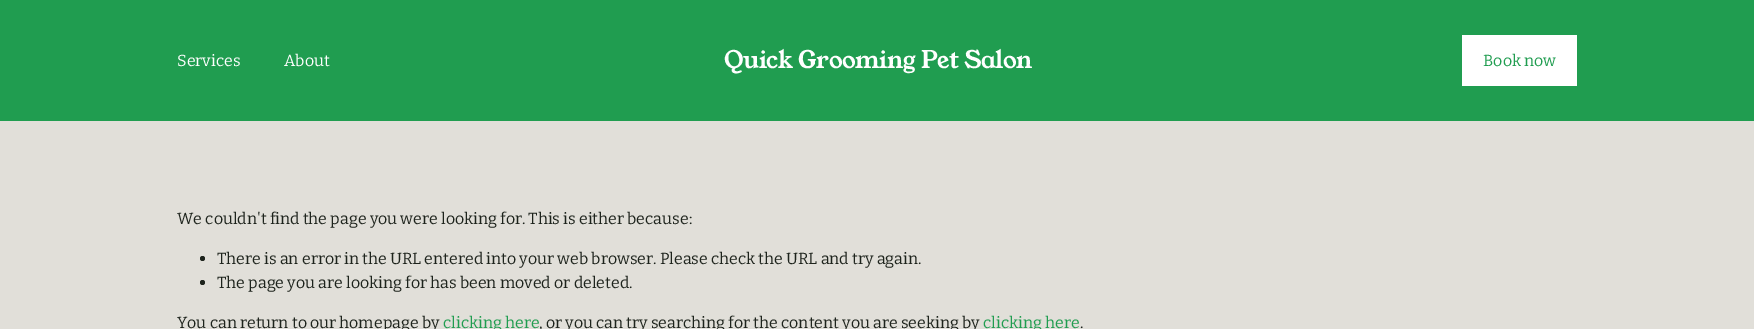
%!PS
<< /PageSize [1754 329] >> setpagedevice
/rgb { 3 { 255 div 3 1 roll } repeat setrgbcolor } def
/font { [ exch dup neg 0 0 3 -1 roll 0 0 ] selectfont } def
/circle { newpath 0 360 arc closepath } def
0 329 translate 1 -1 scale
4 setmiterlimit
225 223 217 rgb
0 0 1754 329 rectfill
32 157 80 rgb
0 0 1754 121 rectfill
255 255 255 rgb
1462 35 115 51 rectfill
29 35 28 rgb
202.5 258.5 2.5 circle fill
202.5 282.5 2.5 circle fill
/Bitter-Regular 16 font
255 255 255 rgb
177 66 moveto (Services) show
284 66 moveto (About) show
/YoungSerif-Regular 24 font
724 68 moveto -0.5 0 (Quick Grooming Pet Salon) ashow
/Bitter-Regular 16 font
32 157 80 rgb
1483 66 moveto (Book now) show
29 35 28 rgb
[
  [(We couldn't find the page you were looking for. This is either because:) 177 224]
  [(There is an error in the URL entered into your web browser. Please check the URL and try again.) 217 264]
  [(The page you are looking for has been moved or deleted.) 217 288]
  [(You can return to our homepage by) 177 328]
] { aload pop moveto show } forall
32 157 80 rgb
443 328 moveto (clicking here) show
29 35 28 rgb
539 328 moveto (, or you can try searching for the content you are seeking by) show
32 157 80 rgb
983 328 moveto (clicking here) show
29 35 28 rgb
1080 328 moveto (.) show
showpage
